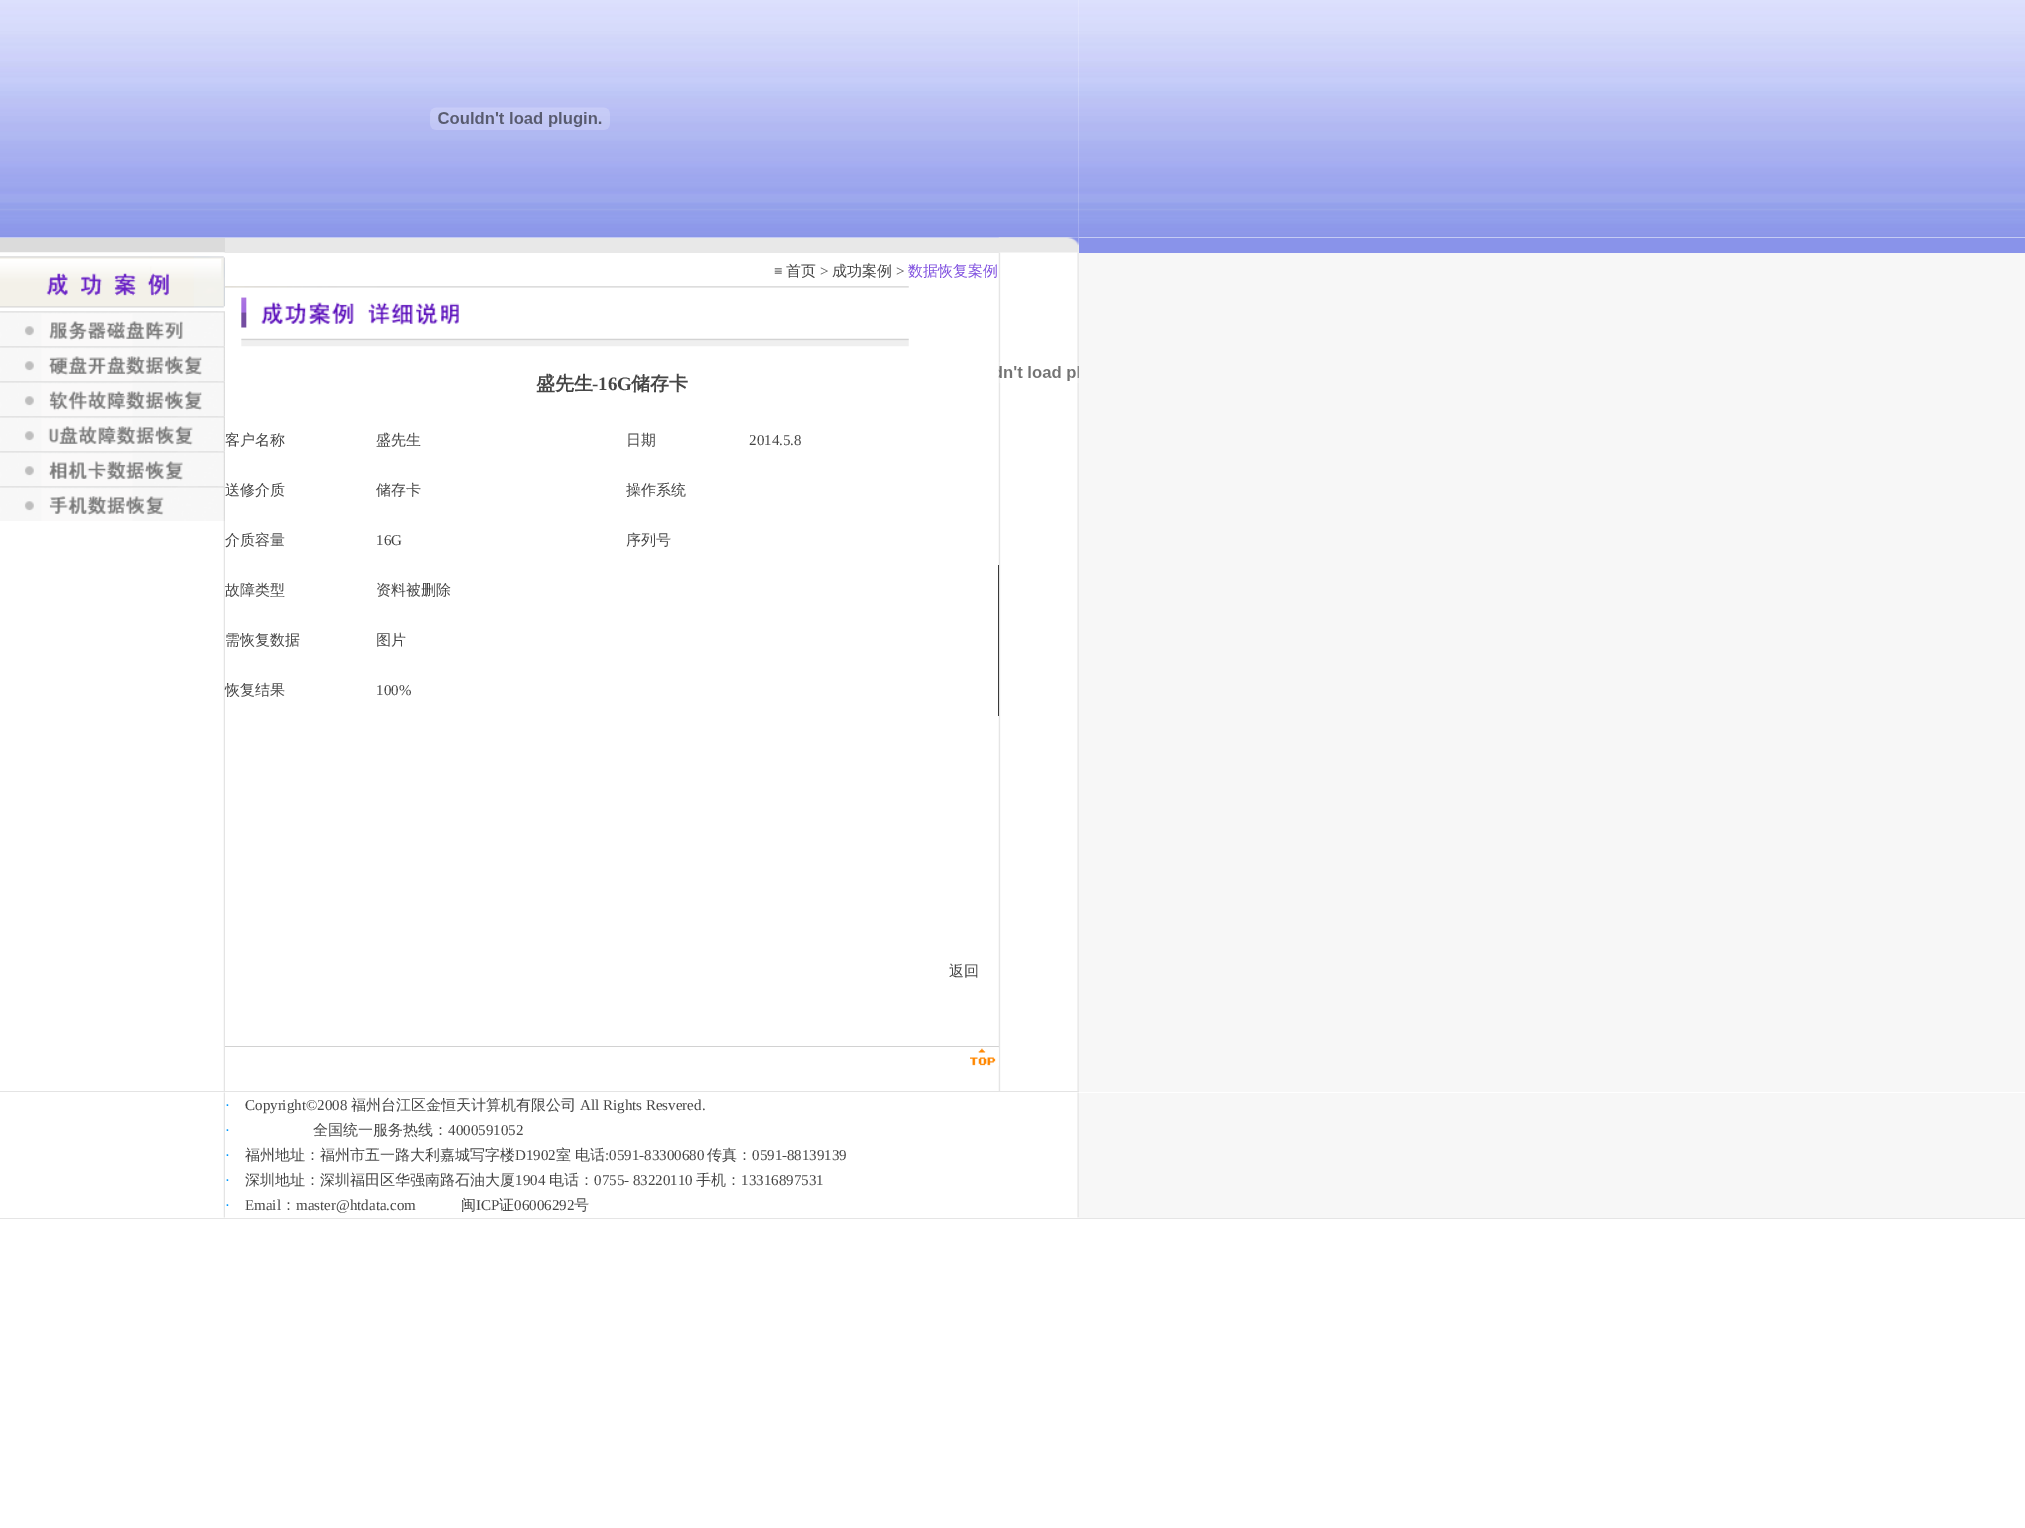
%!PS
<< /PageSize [2025 1528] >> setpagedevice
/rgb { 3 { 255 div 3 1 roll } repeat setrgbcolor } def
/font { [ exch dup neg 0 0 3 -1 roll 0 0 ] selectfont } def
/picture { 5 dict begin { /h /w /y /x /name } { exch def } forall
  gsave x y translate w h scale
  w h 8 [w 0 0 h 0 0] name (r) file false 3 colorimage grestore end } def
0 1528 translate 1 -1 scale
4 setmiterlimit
255 255 255 rgb
0 0 2025 1528 rectfill
(img/1.rgb) 0 0 1079 238 picture
(img/2.rgb) 430 107 180 23 picture
(img/3.rgb) 1078 0 947 238 picture
[
  [0 238 225 15 219 219 219]
  [225 238 774 15 232 232 232]
  [998 565 1 151 0 0 0]
  [225 1046 774 1 210 210 210]
] { aload pop rgb rectfill } forall
(img/15.rgb) 998 252 81 839 picture
(img/4.rgb) 998 237 81 16 picture
137 147 234 rgb
1079 238 946 15 rectfill
(img/5.rgb) 0 252 225 839 picture
255 255 255 rgb
223 308 2 179 rectfill
(img/6.rgb) 0 252 225 56 picture
(img/7.rgb) 0 311 225 36 picture
(img/8.rgb) 0 346 225 36 picture
(img/9.rgb) 0 381 225 36 picture
(img/10.rgb) 0 416 225 36 picture
(img/11.rgb) 0 451 225 36 picture
(img/12.rgb) 0 486 225 35 picture
(img/13.rgb) 225 286 684 61 picture
(img/14.rgb) 970 1048 29 18 picture
(img/16.rgb) 998 362 81 21 picture
247 247 247 rgb
1079 253 946 839 rectfill
228 228 228 rgb
0 1091 1079 1 rectfill
(img/17.rgb) 223 1092 2 126 picture
(img/18.rgb) 1077 1092 2 126 picture
247 247 247 rgb
1079 1093 946 125 rectfill
229 229 229 rgb
0 1218 2025 1 rectfill
/LiberationSerif-Regular 15 font
34 34 34 rgb
774 276 moveto (≡) show
/WenQuanYiZenHei-Medium 15 font
70 70 70 rgb
786 276 moveto (首页) show
/LiberationSerif-Regular 15 font
820 276 moveto (>) show
/WenQuanYiZenHei-Medium 15 font
832 276 moveto (成功案例) show
/LiberationSerif-Regular 15 font
896 276 moveto (>) show
/WenQuanYiZenHei-Medium 15 font
129 82 224 rgb
908 276 moveto (数据恢复案例) show
/WenQuanYiZenHei-Bold 19 font
70 70 70 rgb
536 390 moveto (盛先生) show
/LiberationSerif-Bold 19 font
592 390 moveto (-16G) show
/WenQuanYiZenHei-Bold 19 font
631 390 moveto (储存卡) show
/WenQuanYiZenHei-Medium 15 font
[
  [(客户名称) 225 445]
  [(盛先生) 376 445]
  [(日期) 626 445]
] { aload pop moveto show } forall
/LiberationSerif-Regular 15 font
749 445 moveto (2014.5.8) show
/WenQuanYiZenHei-Medium 15 font
[
  [(送修介质) 225 495]
  [(储存卡) 376 495]
  [(操作系统) 626 495]
  [(介质容量) 225 545]
] { aload pop moveto show } forall
/LiberationSerif-Regular 15 font
376 545 moveto (16G) show
/WenQuanYiZenHei-Medium 15 font
[
  [(序列号) 626 545]
  [(故障类型) 225 595]
  [(资料被删除) 376 595]
  [(需恢复数据) 225 645]
  [(图片) 376 645]
  [(恢复结果) 225 695]
] { aload pop moveto show } forall
/LiberationSerif-Regular 15 font
376 695 moveto (100%) show
/WenQuanYiZenHei-Medium 15 font
949 976 moveto (返回) show
/LiberationSerif-Regular 15 font
0 153 255 rgb
225 1110 moveto (·) show
70 70 70 rgb
245 1110 moveto (Copyright©2008) show
/WenQuanYiZenHei-Medium 15 font
351 1110 moveto (福州台江区金恒天计算机有限公司) show
/LiberationSerif-Regular 15 font
580 1110 moveto (All Rights Resvered.) show
0 153 255 rgb
225 1135 moveto (·) show
/WenQuanYiZenHei-Medium 15 font
70 70 70 rgb
313 1135 moveto (全国统一服务热线：) show
/LiberationSerif-Regular 15 font
448 1135 moveto (4000591052) show
0 153 255 rgb
225 1160 moveto (·) show
/WenQuanYiZenHei-Medium 15 font
70 70 70 rgb
245 1160 moveto (福州地址：福州市五一路大利嘉城写字楼) show
/LiberationSerif-Regular 15 font
515 1160 moveto (D1902) show
/WenQuanYiZenHei-Medium 15 font
556 1160 moveto (室) show
575 1160 moveto (电话) show
/LiberationSerif-Regular 15 font
605 1160 moveto (:0591-83300680) show
/WenQuanYiZenHei-Medium 15 font
707 1160 moveto (传真：) show
/LiberationSerif-Regular 15 font
752 1160 moveto (0591-88139139) show
0 153 255 rgb
225 1185 moveto (·) show
/WenQuanYiZenHei-Medium 15 font
70 70 70 rgb
245 1185 moveto (深圳地址：深圳福田区华强南路石油大厦) show
/LiberationSerif-Regular 15 font
515 1185 moveto (1904) show
/WenQuanYiZenHei-Medium 15 font
549 1185 moveto (电话：) show
/LiberationSerif-Regular 15 font
594 1185 moveto (0755- 83220110) show
/WenQuanYiZenHei-Medium 15 font
696 1185 moveto (手机：) show
/LiberationSerif-Regular 15 font
741 1185 moveto (13316897531) show
0 153 255 rgb
225 1210 moveto (·) show
70 70 70 rgb
245 1210 moveto (Email) show
/WenQuanYiZenHei-Medium 15 font
281 1210 moveto (：) show
/LiberationSerif-Regular 15 font
296 1210 moveto (master@htdata.com) show
/WenQuanYiZenHei-Medium 15 font
461 1210 moveto (闽) show
/LiberationSerif-Regular 15 font
476 1210 moveto (ICP) show
/WenQuanYiZenHei-Medium 15 font
499 1210 moveto (证) show
/LiberationSerif-Regular 15 font
514 1210 moveto (06006292) show
/WenQuanYiZenHei-Medium 15 font
574 1210 moveto (号) show
showpage
